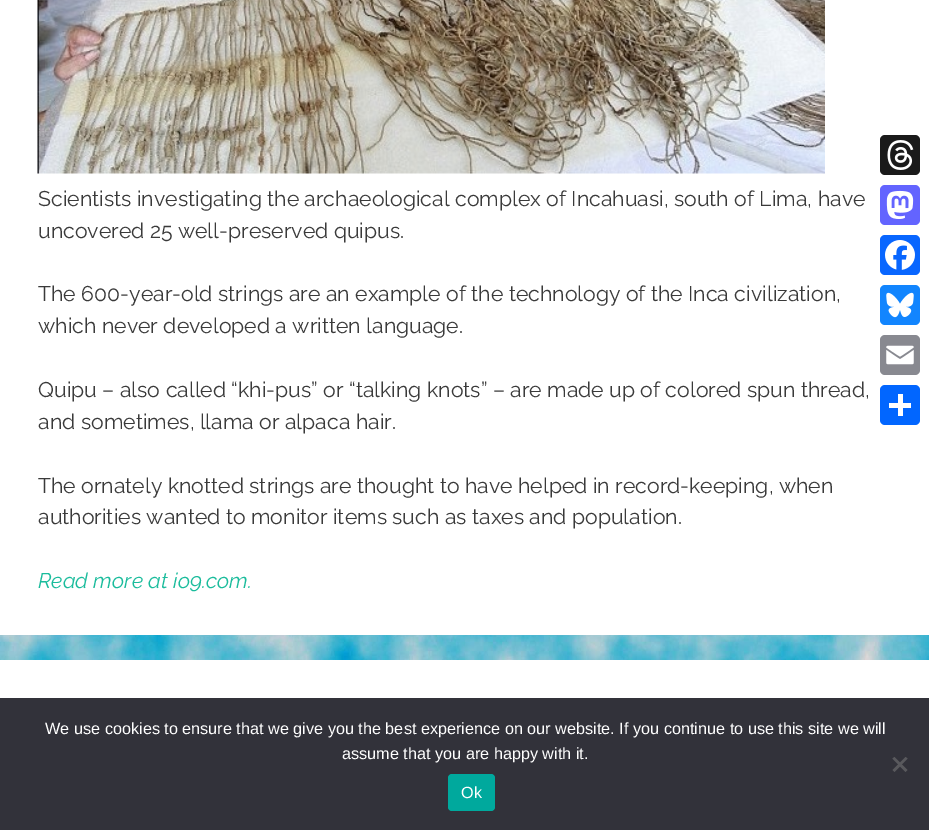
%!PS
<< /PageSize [929 830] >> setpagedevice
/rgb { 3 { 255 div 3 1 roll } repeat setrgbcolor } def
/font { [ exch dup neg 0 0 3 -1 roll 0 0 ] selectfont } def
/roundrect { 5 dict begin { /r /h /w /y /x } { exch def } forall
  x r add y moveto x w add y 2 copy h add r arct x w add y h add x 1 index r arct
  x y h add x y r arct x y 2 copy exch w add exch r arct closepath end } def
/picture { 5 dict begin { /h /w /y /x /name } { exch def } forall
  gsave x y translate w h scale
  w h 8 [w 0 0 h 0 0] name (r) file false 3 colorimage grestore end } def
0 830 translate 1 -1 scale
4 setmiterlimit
255 255 255 rgb
0 0 929 830 rectfill
(img/1.rgb) 0 635 929 25 picture
(img/2.rgb) 37 0 788 174 picture
26 26 26 rgb
880 135 40 40 5 roundrect fill
(img/3.rgb) 887 140 27 30 picture
99 100 255 rgb
880 185 40 40 5 roundrect fill
(img/4.rgb) 886 190 28 29 picture
8 102 255 rgb
880 235 40 40 5 roundrect fill
(img/5.rgb) 885 240 30 30 picture
18 133 254 rgb
880 285 40 40 5 roundrect fill
(img/6.rgb) 886 292 28 26 picture
136 137 144 rgb
880 335 40 40 5 roundrect fill
(img/7.rgb) 886 345 28 20 picture
1 102 255 rgb
880 385 40 40 5 roundrect fill
[
  [898 394 5 22 255 255 255]
  [889 403 22 5 255 255 255]
  [0 698 929 132 50 50 58]
] { aload pop rgb rectfill } forall
89 89 93 rgb
905.5 757 moveto 907.5 758.5 lineto 894.5 772 lineto 892.5 770 lineto closepath fill
892.5 758.5 moveto 894.5 757 lineto 907.5 770 lineto 905.5 772 lineto closepath fill
0 169 157 rgb
448 774 47 37 4 roundrect fill
/Raleway-Regular 21.25 font
58 58 58 rgb
[
  [(Scientists investigating the archaeological complex of Incahuasi, south of Lima, have) 38 206]
  [(uncovered 25 well-preserved quipus.) 38 238]
  [(The 600-year-old strings are an example of the technology of the Inca civilization,) 38 301]
  [(which never developed a written language.) 38 333]
  [(Quipu – also called “khi-pus” or “talking knots” – are made up of colored spun thread,) 38 397]
  [(and sometimes, llama or alpaca hair.) 38 429]
  [(The ornately knotted strings are thought to have helped in record-keeping, when) 38 493]
  [(authorities wanted to monitor items such as taxes and population.) 38 524]
] { aload pop moveto show } forall
/Raleway-Italic 21.25 font
26 188 156 rgb
38 588 moveto (Read more at io9.com.) show
/LiberationSans-Regular 16.25 font
255 255 255 rgb
[
  [(We use cookies to ensure that we give you the best experience on our website. If you continue to use this site we will) 45 734]
  [(assume that you are happy with it.) 342 759]
  [(Ok) 461 798]
] { aload pop moveto show } forall
showpage
